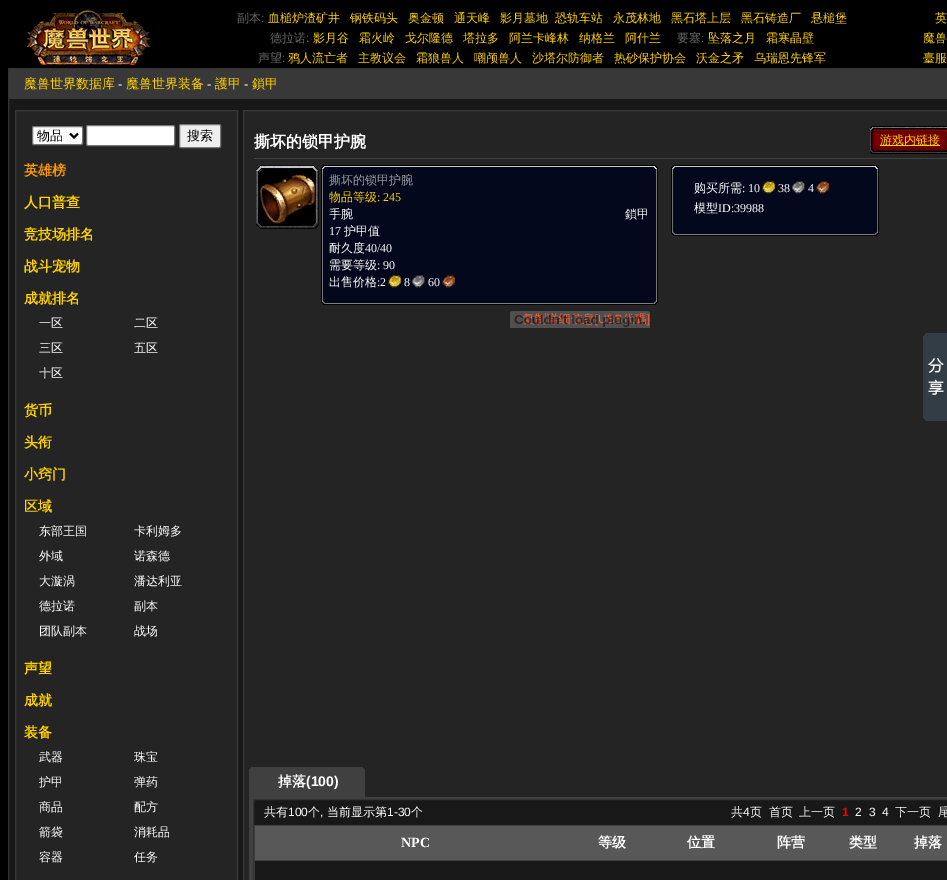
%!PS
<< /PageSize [947 880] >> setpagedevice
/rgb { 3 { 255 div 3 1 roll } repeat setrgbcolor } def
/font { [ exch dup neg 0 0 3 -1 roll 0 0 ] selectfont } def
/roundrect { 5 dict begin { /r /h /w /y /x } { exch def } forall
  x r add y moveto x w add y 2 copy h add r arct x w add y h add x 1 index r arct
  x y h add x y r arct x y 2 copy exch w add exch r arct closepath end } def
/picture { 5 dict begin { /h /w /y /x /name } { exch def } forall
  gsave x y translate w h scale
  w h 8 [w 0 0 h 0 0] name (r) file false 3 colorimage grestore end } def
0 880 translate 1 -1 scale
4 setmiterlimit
0 0 0 rgb
0 0 947 880 rectfill
(img/1.rgb) 26 10 125 56 picture
24 24 24 rgb
9 99 938 781 rectfill
51 51 51 rgb
8.5 68.5 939 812 rectstroke
56 56 56 rgb
9 69 938 30 rectfill
36 36 36 rgb
15.5 110.5 moveto 237.5 110.5 lineto 237.5 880.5 lineto 15.5 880.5 lineto closepath gsave fill grestore
56 56 56 rgb
stroke
255 255 255 rgb
32.5 126.5 50 18 1.5 roundrect gsave fill grestore
118 118 118 rgb
stroke
0 0 0 rgb
2 setlinewidth
70 133.5 moveto 74 137.5 lineto 78 133.5 lineto stroke
255 255 255 rgb
86.5 125.5 88 20 1.5 roundrect gsave fill grestore
118 118 118 rgb
1 setlinewidth
stroke
239 239 239 rgb
179.5 124.5 41 23 1.5 roundrect gsave fill grestore
118 118 118 rgb
stroke
36 36 36 rgb
243.5 110.5 moveto 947.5 110.5 lineto 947.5 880.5 lineto 243.5 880.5 lineto closepath gsave fill grestore
56 56 56 rgb
stroke
64 64 64 rgb
254 158 693 1 rectfill
(img/2.rgb) 870 126 77 28 picture
255 209 0 rgb
880 145 60 1 rectfill
(img/3.rgb) 256 166 62 62 picture
(img/4.rgb) 256 165 63 64 picture
(img/5.rgb) 321 165 332 127 picture
(img/6.rgb) 388 275 13 13 picture
(img/7.rgb) 412 275 13 13 picture
(img/8.rgb) 442 275 13 13 picture
(img/9.rgb) 653 165 5 127 picture
(img/10.rgb) 321 292 332 13 picture
(img/11.rgb) 653 292 5 13 picture
(img/13.rgb) 671 165 202 58 picture
(img/6.rgb) 762 181 13 13 picture
(img/7.rgb) 792 181 13 13 picture
(img/8.rgb) 816 181 13 13 picture
(img/14.rgb) 873 165 6 58 picture
(img/15.rgb) 671 223 202 13 picture
(img/16.rgb) 873 223 6 13 picture
64 64 64 rgb
249 767 116 30 rectfill
(img/17.rgb) 249 767 2 2 picture
(img/18.rgb) 363 767 2 2 picture
249 797 698 83 rectfill
24 24 24 rgb
254 800 693 25 rectfill
51 51 51 rgb
253.5 799.5 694 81 rectstroke
88 88 88 rgb
255 826 692 34 rectfill
24 24 24 rgb
255 861 692 19 rectfill
(img/19.rgb) 923 333 24 88 picture
/WenQuanYiZenHei-Medium 12 font
102 102 102 rgb
237 22 moveto (副本) show
/LiberationSans-Regular 12 font
261 22 moveto (:) show
/WenQuanYiZenHei-Medium 12 font
255 209 0 rgb
[
  [(血槌炉渣矿井) 268 22]
  [(钢铁码头) 350 22]
  [(奥金顿) 408 22]
  [(通天峰) 454 22]
  [(影月墓地) 500 22]
  [(恐轨车站) 555 22]
  [(永茂林地) 613 22]
  [(黑石塔上层) 671 22]
  [(黑石铸造厂) 741 22]
  [(悬槌堡) 811 22]
  [(英) 935 22]
] { aload pop moveto show } forall
102 102 102 rgb
270 42 moveto (德拉诺) show
/LiberationSans-Regular 12 font
306 42 moveto (:) show
/WenQuanYiZenHei-Medium 12 font
255 209 0 rgb
[
  [(影月谷) 313 42]
  [(霜火岭) 359 42]
  [(戈尔隆德) 405 42]
  [(塔拉多) 463 42]
  [(阿兰卡峰林) 509 42]
  [(纳格兰) 579 42]
  [(阿什兰) 625 42]
] { aload pop moveto show } forall
102 102 102 rgb
677 42 moveto (要塞) show
/LiberationSans-Regular 12 font
701 42 moveto (:) show
/WenQuanYiZenHei-Medium 12 font
255 209 0 rgb
[
  [(坠落之月) 708 42]
  [(霜寒晶壁) 766 42]
  [(魔兽) 923 42]
] { aload pop moveto show } forall
102 102 102 rgb
258 62 moveto (声望) show
/LiberationSans-Regular 12 font
282 62 moveto (:) show
/WenQuanYiZenHei-Medium 12 font
255 209 0 rgb
[
  [(鸦人流亡者) 288 62]
  [(主教议会) 358 62]
  [(霜狼兽人) 416 62]
  [(嘲颅兽人) 474 62]
  [(沙塔尔防御者) 532 62]
  [(热砂保护协会) 614 62]
  [(沃金之矛) 696 62]
  [(乌瑞恩先锋军) 754 62]
  [(臺服) 923 62]
] { aload pop moveto show } forall
/WenQuanYiZenHei-Medium 13 font
24 88 moveto (魔兽世界数据库) show
/LiberationSerif-Regular 13 font
255 255 255 rgb
118 88 moveto (-) show
/WenQuanYiZenHei-Medium 13 font
255 209 0 rgb
126 88 moveto (魔兽世界装备) show
/LiberationSerif-Regular 13 font
255 255 255 rgb
207 88 moveto (-) show
/WenQuanYiZenHei-Medium 13 font
255 209 0 rgb
215 88 moveto (護甲) show
/LiberationSerif-Regular 13 font
255 255 255 rgb
244 88 moveto (-) show
/WenQuanYiZenHei-Medium 13 font
255 209 0 rgb
252 88 moveto (鎖甲) show
0 0 0 rgb
37 140 moveto (物品) show
187 140 moveto (搜索) show
/WenQuanYiZenHei-Bold 14 font
254 153 0 rgb
24 175 moveto (英雄榜) show
255 209 0 rgb
[
  [(人口普查) 24 207]
  [(竞技场排名) 24 239]
  [(战斗宠物) 24 271]
  [(成就排名) 24 303]
] { aload pop moveto show } forall
/WenQuanYiZenHei-Medium 12 font
255 255 255 rgb
[
  [(一区) 39 327]
  [(二区) 134 327]
  [(三区) 39 352]
  [(五区) 134 352]
  [(十区) 39 377]
] { aload pop moveto show } forall
/WenQuanYiZenHei-Bold 14 font
255 209 0 rgb
[
  [(货币) 24 415]
  [(头衔) 24 447]
  [(小窍门) 24 479]
  [(区域) 24 511]
] { aload pop moveto show } forall
/WenQuanYiZenHei-Medium 12 font
255 255 255 rgb
[
  [(东部王国) 39 535]
  [(卡利姆多) 134 535]
  [(外域) 39 560]
  [(诺森德) 134 560]
  [(大漩涡) 39 585]
  [(潘达利亚) 134 585]
  [(德拉诺) 39 610]
  [(副本) 134 610]
  [(团队副本) 39 635]
  [(战场) 134 635]
] { aload pop moveto show } forall
/WenQuanYiZenHei-Bold 14 font
255 209 0 rgb
[
  [(声望) 24 673]
  [(成就) 24 705]
  [(装备) 24 737]
] { aload pop moveto show } forall
/WenQuanYiZenHei-Medium 12 font
255 255 255 rgb
[
  [(武器) 39 761]
  [(珠宝) 134 761]
  [(护甲) 39 786]
  [(弹药) 134 786]
  [(商品) 39 811]
  [(配方) 134 811]
  [(箭袋) 39 836]
  [(消耗品) 134 836]
  [(容器) 39 861]
  [(任务) 134 861]
] { aload pop moveto show } forall
/WenQuanYiZenHei-Bold 16 font
254 147 moveto (撕坏的锁甲护腕) show
/WenQuanYiZenHei-Medium 12 font
255 209 0 rgb
880 144 moveto (游戏内链接) show
157 157 157 rgb
329 184 moveto (撕坏的锁甲护腕) show
255 209 0 rgb
329 201 moveto (物品等级) show
/LiberationSerif-Regular 12 font
377 201 moveto (: 245) show
/WenQuanYiZenHei-Medium 12 font
255 255 255 rgb
329 218 moveto (手腕) show
625 218 moveto (鎖甲) show
/LiberationSerif-Regular 12 font
329 235 moveto (17) show
/WenQuanYiZenHei-Medium 12 font
344 235 moveto (护甲值) show
329 252 moveto (耐久度) show
/LiberationSerif-Regular 12 font
365 252 moveto (40/40) show
/WenQuanYiZenHei-Medium 12 font
329 269 moveto (需要等级) show
/LiberationSerif-Regular 12 font
377 269 moveto (: 90) show
/WenQuanYiZenHei-Medium 12 font
329 286 moveto (出售价格) show
/LiberationSerif-Regular 12 font
[
  [(:2) 377 286]
  [(8) 404 286]
  [(60) 428 286]
] { aload pop moveto show } forall
/WenQuanYiZenHei-Medium 12 font
255 51 0 rgb
523 323 moveto (复制详细信息) show
/LiberationSans-Regular 12 font
595 323 moveto ([UBB) show
/WenQuanYiZenHei-Medium 12 font
623 323 moveto (代碼) show
/LiberationSans-Regular 12 font
647 323 moveto (]) show
(img/12.rgb) 510 311 140 17 picture
/WenQuanYiZenHei-Medium 12 font
255 255 255 rgb
694 192 moveto (购买所需) show
/LiberationSerif-Regular 12 font
[
  [(: 10) 742 192]
  [(38) 778 192]
  [(4) 808 192]
] { aload pop moveto show } forall
/WenQuanYiZenHei-Medium 12 font
694 212 moveto (模型) show
/LiberationSerif-Regular 12 font
718 212 moveto (ID:39988) show
/WenQuanYiZenHei-Bold 14 font
278 786 moveto (掉落) show
/LiberationSans-Bold 14 font
306 786 moveto (\(100\)) show
/WenQuanYiZenHei-Medium 12 font
264 816 moveto (共有) show
/LiberationSans-Regular 12 font
288 816 moveto (100) show
/WenQuanYiZenHei-Medium 12 font
308 816 moveto (个) show
/LiberationSans-Regular 12 font
320 816 moveto (,) show
/WenQuanYiZenHei-Medium 12 font
327 816 moveto (当前显示第) show
/LiberationSans-Regular 12 font
387 816 moveto (1-30) show
/WenQuanYiZenHei-Medium 12 font
411 816 moveto (个) show
731 816 moveto (共) show
/LiberationSans-Regular 12 font
743 816 moveto (4) show
/WenQuanYiZenHei-Medium 12 font
[
  [(页) 750 816]
  [(首页) 769 816]
  [(上一页) 799 816]
] { aload pop moveto show } forall
/LiberationSans-Bold 12 font
255 0 0 rgb
842 816 moveto (1) show
/LiberationSans-Regular 12 font
255 255 255 rgb
[
  [(2) 855 816]
  [(3) 869 816]
  [(4) 882 816]
] { aload pop moveto show } forall
/WenQuanYiZenHei-Medium 12 font
895 816 moveto (下一页) show
938 816 moveto (尾) show
/LiberationSerif-Bold 14 font
401 847 moveto (NPC) show
/WenQuanYiZenHei-Bold 14 font
[
  [(等级) 598 847]
  [(位置) 687 847]
  [(阵营) 777 847]
  [(类型) 849 847]
  [(掉落) 914 847]
] { aload pop moveto show } forall
showpage
